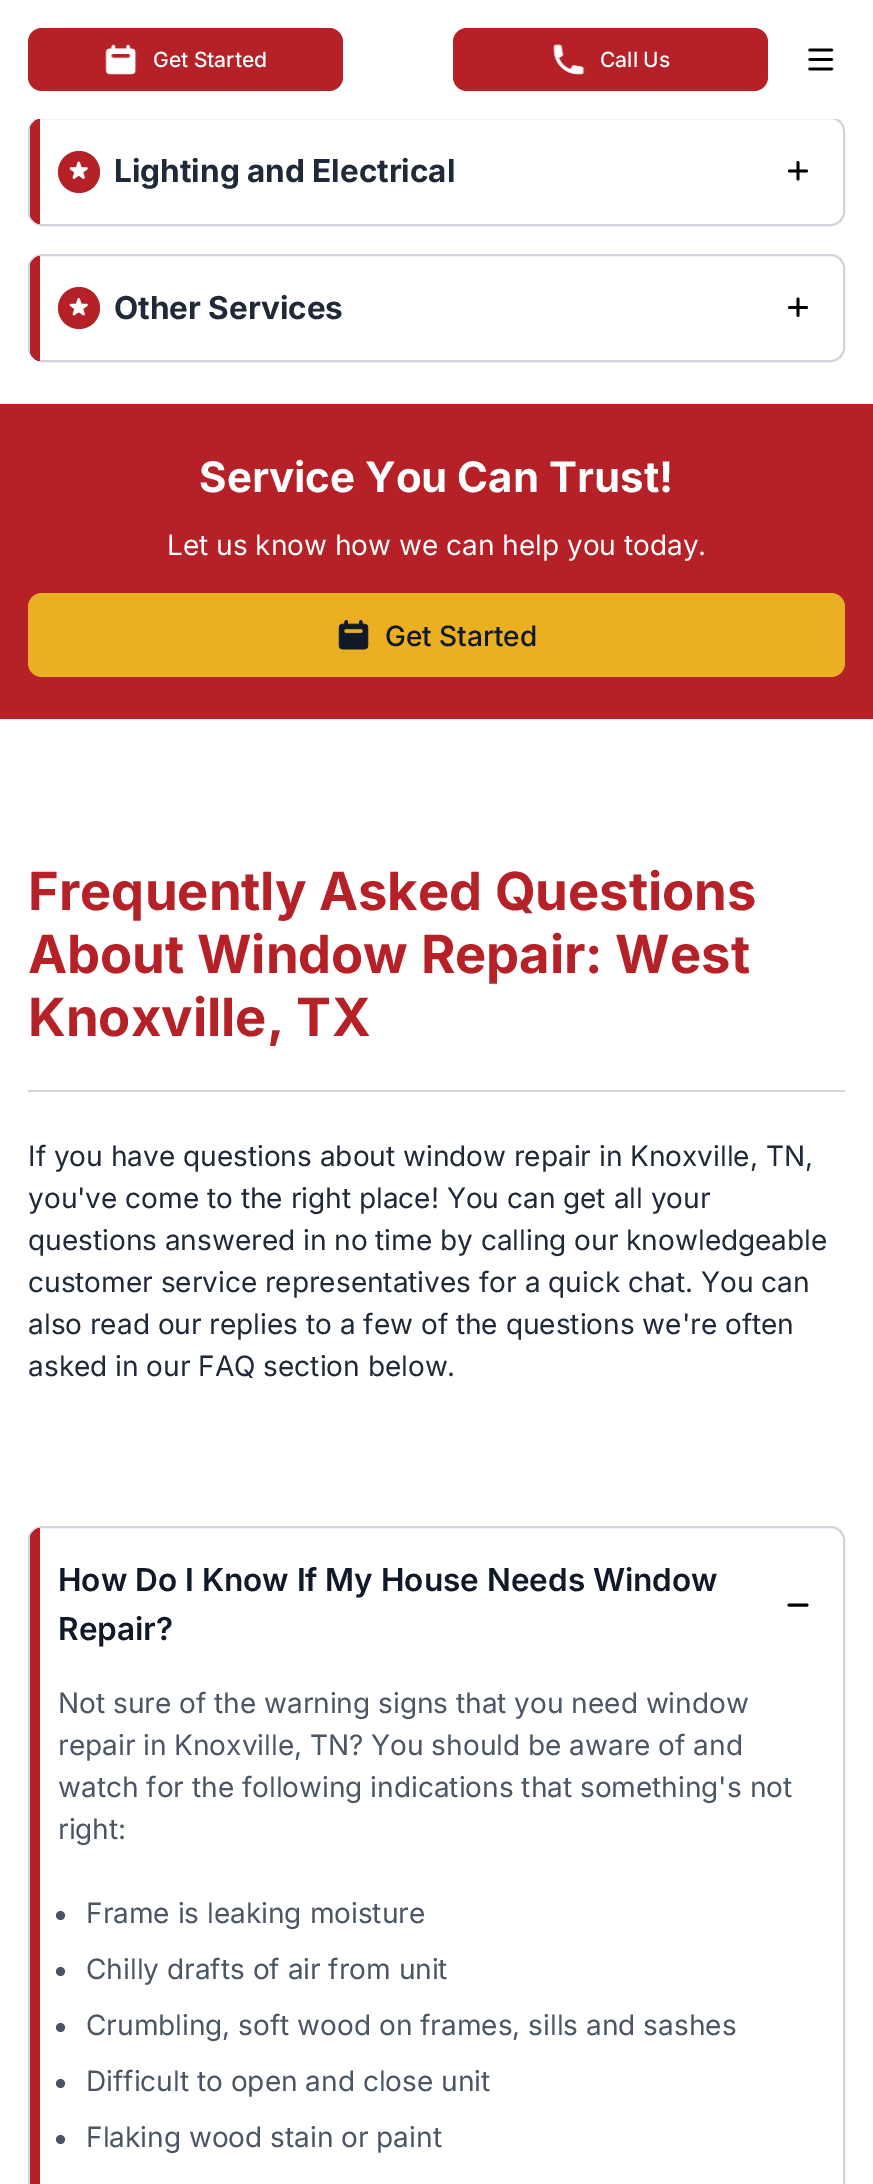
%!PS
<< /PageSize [873 2184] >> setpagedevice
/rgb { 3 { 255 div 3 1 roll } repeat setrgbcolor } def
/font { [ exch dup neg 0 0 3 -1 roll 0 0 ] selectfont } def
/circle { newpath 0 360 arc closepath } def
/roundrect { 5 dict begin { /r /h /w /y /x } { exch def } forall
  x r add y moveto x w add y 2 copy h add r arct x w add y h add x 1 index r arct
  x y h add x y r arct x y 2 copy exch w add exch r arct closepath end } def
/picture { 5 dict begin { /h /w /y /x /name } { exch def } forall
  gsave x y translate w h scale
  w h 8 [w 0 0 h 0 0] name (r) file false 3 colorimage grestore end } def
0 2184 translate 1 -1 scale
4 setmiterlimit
255 255 255 rgb
0 0 873 2184 rectfill
209 213 219 rgb
2 setlinewidth
29 118 815 107 13 roundrect stroke
255 255 255 rgb
35 117 803 2 rectfill
181 33 38 rgb
28 28 315 63 14 roundrect fill
(img/1.rgb) 105 44 32 31 picture
453 28 315 63 14 roundrect fill
(img/2.rgb) 553 44 32 31 picture
(img/3.rgb) 808 48 26 23 picture
gsave
30 119 814 105 12 roundrect clip newpath
30 119 10 105 rectfill
grestore
79 172 21 circle fill
(img/4.rgb) 69 161 19 18 picture
0 0 0 rgb
2.8 setlinewidth
1 setlinecap
1 setlinejoin
798 162.5 moveto 798 171 lineto 798 171 moveto 798 179 lineto 798 171 moveto 806.5 171 lineto 798 171 moveto 789.5 171 lineto stroke
209 213 219 rgb
2 setlinewidth
0 setlinecap
0 setlinejoin
29 255 815 106 13 roundrect stroke
gsave
30 256 814 105 12 roundrect clip newpath
181 33 38 rgb
30 256 10 105 rectfill
grestore
181 33 38 rgb
79 308 21 circle fill
(img/5.rgb) 69 298 19 18 picture
0 0 0 rgb
2.8 setlinewidth
1 setlinecap
1 setlinejoin
798 299 moveto 798 307.5 lineto 798 307.5 moveto 798 315.5 lineto 798 307.5 moveto 806.5 307.5 lineto 798 307.5 moveto 789.5 307.5 lineto stroke
181 33 38 rgb
0 404 873 315 rectfill
235 176 33 rgb
28 593 817 84 14 roundrect fill
(img/6.rgb) 338 620 31 30 picture
209 213 219 rgb
28 1090 817 2 rectfill
2 setlinewidth
0 setlinecap
0 setlinejoin
29 1527 815 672 13 roundrect stroke
gsave
30 1528 814 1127 12 roundrect clip newpath
181 33 38 rgb
30 1528 10 656 rectfill
grestore
0 0 0 rgb
2.9 setlinewidth
1 setlinecap
1 setlinejoin
807 1605 moveto 789 1605 lineto stroke
75 85 99 rgb
60.5 1915.5 4.5 circle fill
60.5 1971.5 4.5 circle fill
60.5 2027.5 4.5 circle fill
60.5 2083.5 4.5 circle fill
60.5 2139.5 4.5 circle fill
/Inter-Medium 21 font
255 255 255 rgb
153 67 moveto (Get Started) show
600 67 moveto (Call Us) show
/Inter-Bold 31.5 font
31 41 55 rgb
114 182 moveto (Lighting and Electrical) show
114 319 moveto (Other Services) show
/Inter-Bold 42 font
255 255 255 rgb
199 492 moveto (Service You Can Trust!) show
/Inter-Regular 28 font
167 555 moveto (Let us know how we can help you today.) show
/Inter-Medium 28 font
17 25 40 rgb
385 646 moveto (Get Started) show
/Inter-Bold 52.5 font
181 33 38 rgb
[
  [(Frequently Asked Questions) 28 910]
  [(About Window Repair: West) 28 973]
  [(Knoxville, TX) 28 1036]
] { aload pop moveto show } forall
/Inter-Regular 28 font
31 41 55 rgb
[
  [(If you have questions about window repair in Knoxville, TN,) 28 1166]
  [(you've come to the right place! You can get all your) 28 1208]
  [(questions answered in no time by calling our knowledgeable) 28 1250]
  [(customer service representatives for a quick chat. You can) 28 1292]
  [(also read our replies to a few of the questions we're often) 28 1334]
  [(asked in our FAQ section below.) 28 1376]
] { aload pop moveto show } forall
/Inter-SemiBold 31.5 font
17 25 40 rgb
58 1591 moveto (How Do I Know If My House Needs Window) show
58 1640 moveto (Repair?) show
/Inter-Regular 28 font
75 85 99 rgb
[
  [(Not sure of the warning signs that you need window) 58 1713]
  [(repair in Knoxville, TN? You should be aware of and) 58 1755]
  [(watch for the following indications that something's not) 58 1797]
  [(right:) 58 1839]
  [(Frame is leaking moisture) 86 1923]
  [(Chilly drafts of air from unit) 86 1979]
  [(Crumbling, soft wood on frames, sills and sashes) 86 2035]
  [(Difficult to open and close unit) 86 2091]
  [(Flaking wood stain or paint) 86 2147]
] { aload pop moveto show } forall
showpage
